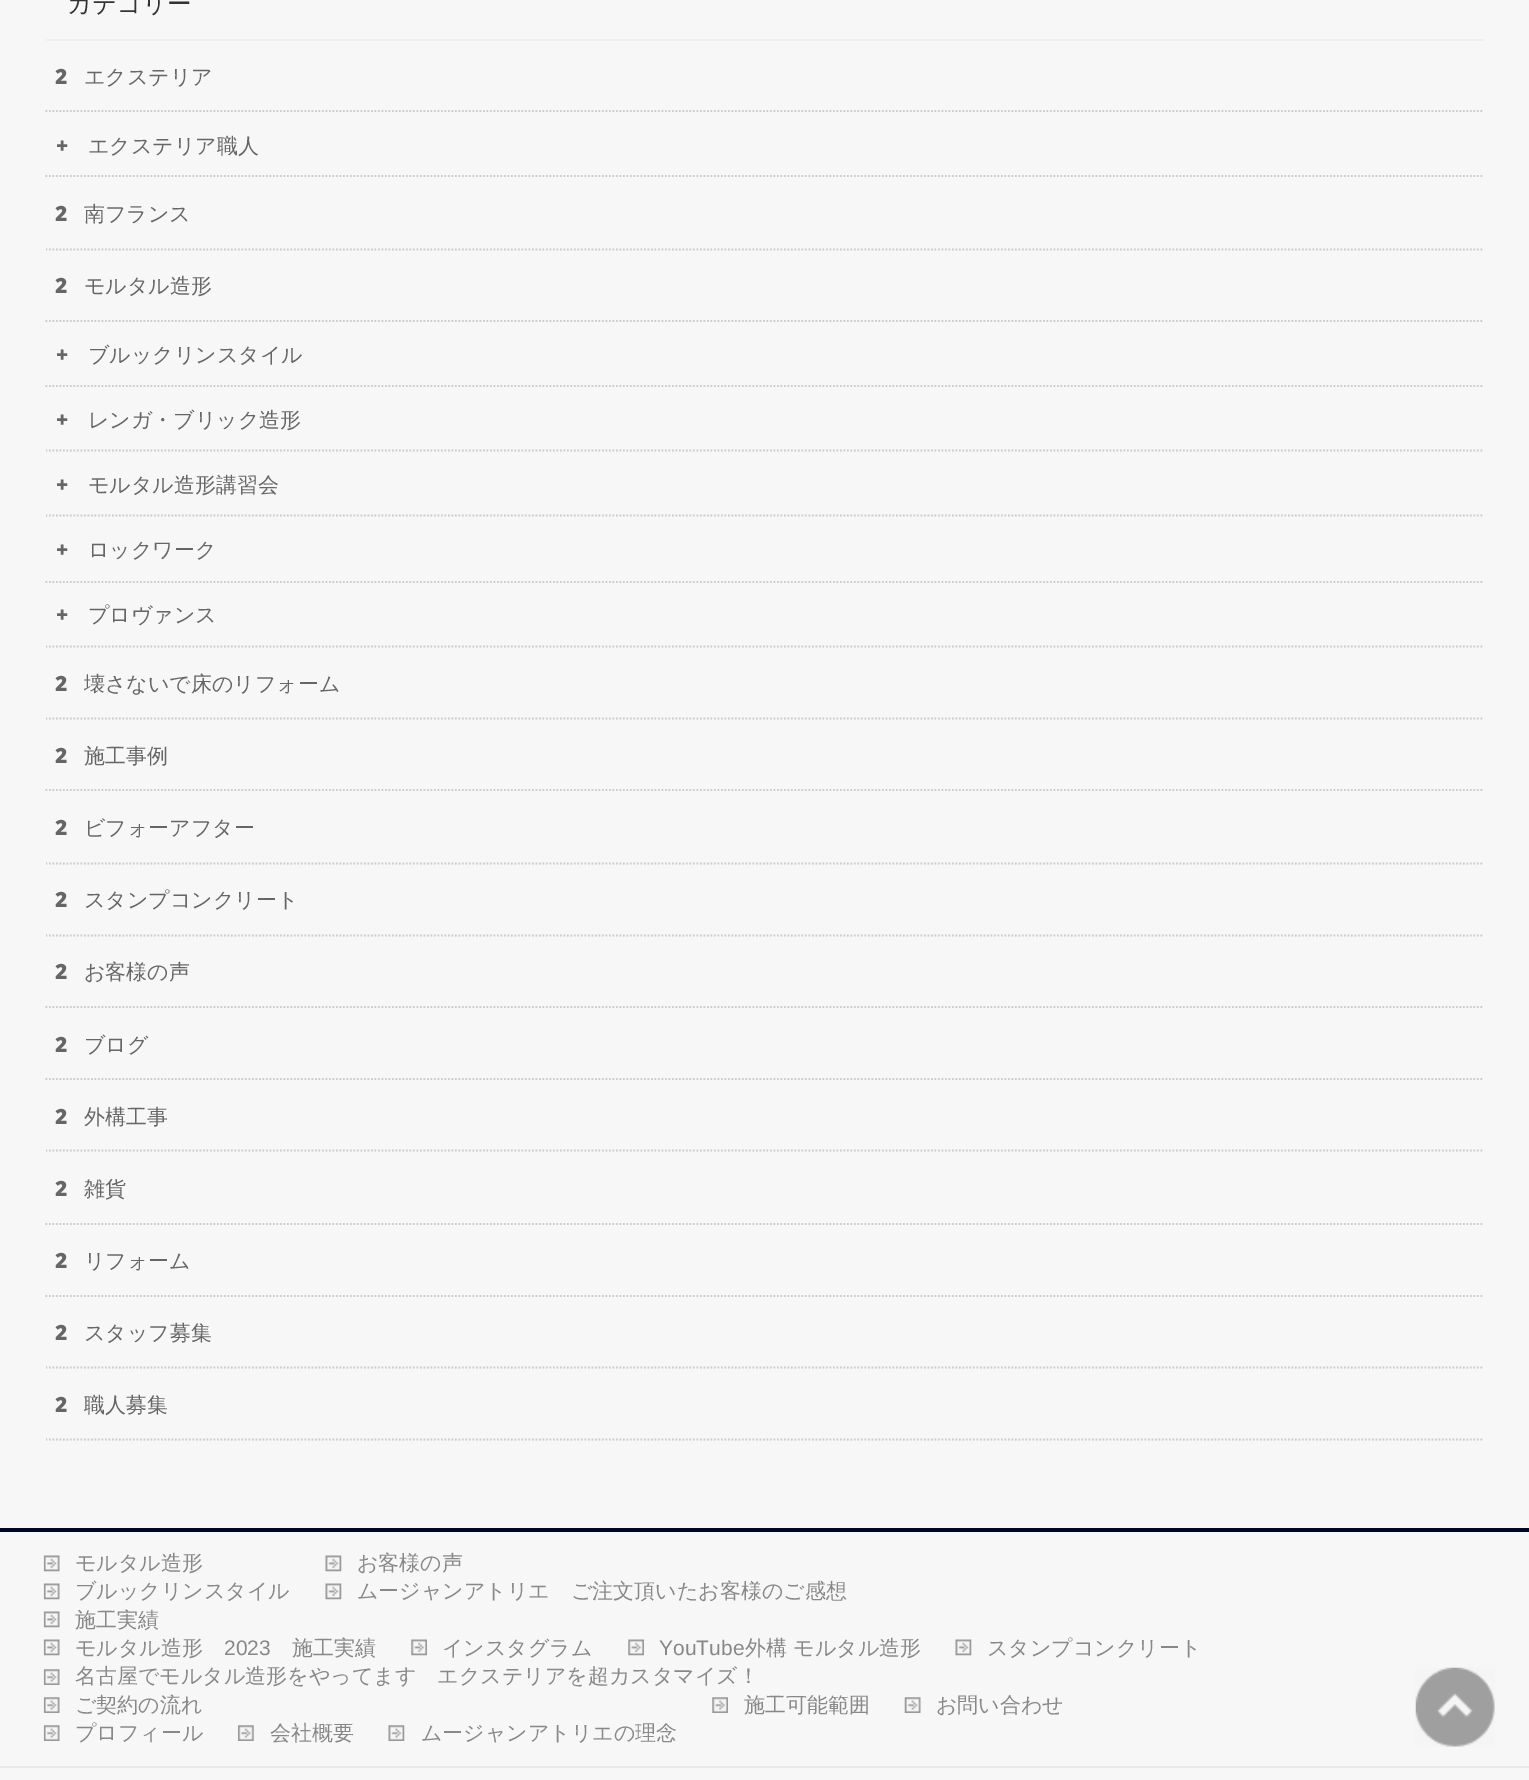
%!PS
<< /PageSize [1529 1780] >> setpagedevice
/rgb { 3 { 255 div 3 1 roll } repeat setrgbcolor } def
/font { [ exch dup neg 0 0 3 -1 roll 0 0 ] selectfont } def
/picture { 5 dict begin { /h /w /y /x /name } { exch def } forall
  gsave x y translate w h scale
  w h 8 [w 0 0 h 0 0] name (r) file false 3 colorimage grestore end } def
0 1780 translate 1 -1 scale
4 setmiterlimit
247 247 247 rgb
0 0 1529 1780 rectfill
239 239 239 rgb
46 39 1438 2 rectfill
204 204 204 rgb
1.8 setlinewidth
[1.75 1.75] 0 setdash
45.5 176 moveto 1484 176 lineto stroke
45.5 111 moveto 1484 111 lineto stroke
gsave
46 0 1438 1528 rectclip
45.5 249.5 moveto 1484 249.5 lineto stroke
45.5 646.5 moveto 1484 646.5 lineto stroke
grestore
45.5 321 moveto 1484 321 lineto stroke
45.5 386 moveto 1484 386 lineto stroke
gsave
46 0 1438 1528 rectclip
45.5 450.5 moveto 1484 450.5 lineto stroke
45.5 515.5 moveto 1484 515.5 lineto stroke
grestore
45.5 582 moveto 1484 582 lineto stroke
gsave
46 0 1438 1528 rectclip
45.5 718.5 moveto 1484 718.5 lineto stroke
grestore
45.5 790 moveto 1484 790 lineto stroke
gsave
46 0 1438 1528 rectclip
45.5 863.5 moveto 1484 863.5 lineto stroke
45.5 935.5 moveto 1484 935.5 lineto stroke
grestore
45.5 1007 moveto 1484 1007 lineto stroke
45.5 1079 moveto 1484 1079 lineto stroke
gsave
46 0 1438 1528 rectclip
45.5 1150.5 moveto 1484 1150.5 lineto stroke
grestore
45.5 1224 moveto 1484 1224 lineto stroke
45.5 1296 moveto 1484 1296 lineto stroke
gsave
46 0 1438 1528 rectclip
45.5 1367.5 moveto 1484 1367.5 lineto stroke
45.5 1439.5 moveto 1484 1439.5 lineto stroke
grestore
0 8 40 rgb
0 1528 1529 4 rectfill
233 233 233 rgb
0 1766 1529 2 rectfill
(img/1.rgb) 43 1555 17 17 picture
(img/1.rgb) 43 1583 17 17 picture
(img/2.rgb) 325 1555 17 17 picture
(img/2.rgb) 325 1583 17 17 picture
(img/1.rgb) 43 1611 17 17 picture
(img/1.rgb) 43 1639 17 17 picture
(img/3.rgb) 411 1639 16 17 picture
(img/3.rgb) 628 1639 16 17 picture
(img/4.rgb) 955 1639 17 17 picture
(img/5.rgb) 43 1669 17 16 picture
(img/5.rgb) 43 1697 17 16 picture
(img/5.rgb) 43 1725 17 16 picture
(img/6.rgb) 238 1725 16 16 picture
(img/7.rgb) 388 1725 17 16 picture
(img/8.rgb) 712 1697 16 16 picture
(img/9.rgb) 904 1697 17 16 picture
(img/10.rgb) 1415 1667 80 80 picture
/WenQuanYiZenHei-Medium 24.5 font
51 51 51 rgb
67 12 moveto (カテゴリー) show
/NotoSans-Black 21 font
102 102 102 rgb
55 84 moveto (2) show
/WenQuanYiZenHei-Medium 21 font
84 84 moveto (エクステリア) show
/NotoSans-Black 21 font
56 153 moveto (+) show
/WenQuanYiZenHei-Medium 21 font
88 153 moveto (エクステリア職人) show
/NotoSans-Black 21 font
55 221 moveto (2) show
/WenQuanYiZenHei-Medium 21 font
84 221 moveto (南フランス) show
/NotoSans-Black 21 font
55 293 moveto (2) show
/WenQuanYiZenHei-Medium 21 font
84 293 moveto (モルタル造形) show
/NotoSans-Black 21 font
56 362 moveto (+) show
/WenQuanYiZenHei-Medium 21 font
88 362 moveto (ブルックリンスタイル) show
/NotoSans-Black 21 font
56 427 moveto (+) show
/WenQuanYiZenHei-Medium 21 font
88 427 moveto (レンガ・ブリック造形) show
/NotoSans-Black 21 font
56 492 moveto (+) show
/WenQuanYiZenHei-Medium 21 font
88 492 moveto (モルタル造形講習会) show
/NotoSans-Black 21 font
56 557 moveto (+) show
/WenQuanYiZenHei-Medium 21 font
88 557 moveto (ロックワーク) show
/NotoSans-Black 21 font
56 622 moveto (+) show
/WenQuanYiZenHei-Medium 21 font
88 622 moveto (プロヴァンス) show
/NotoSans-Black 21 font
55 691 moveto (2) show
/WenQuanYiZenHei-Medium 21 font
84 691 moveto (壊さないで床のリフォーム) show
/NotoSans-Black 21 font
55 763 moveto (2) show
/WenQuanYiZenHei-Medium 21 font
84 763 moveto (施工事例) show
/NotoSans-Black 21 font
55 835 moveto (2) show
/WenQuanYiZenHei-Medium 21 font
84 835 moveto (ビフォーアフター) show
/NotoSans-Black 21 font
55 907 moveto (2) show
/WenQuanYiZenHei-Medium 21 font
84 907 moveto (スタンプコンクリート) show
/NotoSans-Black 21 font
55 979 moveto (2) show
/WenQuanYiZenHei-Medium 21 font
84 979 moveto (お客様の声) show
/NotoSans-Black 21 font
55 1052 moveto (2) show
/WenQuanYiZenHei-Medium 21 font
84 1052 moveto (ブログ) show
/NotoSans-Black 21 font
55 1124 moveto (2) show
/WenQuanYiZenHei-Medium 21 font
84 1124 moveto (外構工事) show
/NotoSans-Black 21 font
55 1196 moveto (2) show
/WenQuanYiZenHei-Medium 21 font
84 1196 moveto (雑貨) show
/NotoSans-Black 21 font
55 1268 moveto (2) show
/WenQuanYiZenHei-Medium 21 font
84 1268 moveto (リフォーム) show
/NotoSans-Black 21 font
55 1340 moveto (2) show
/WenQuanYiZenHei-Medium 21 font
84 1340 moveto (スタッフ募集) show
/NotoSans-Black 21 font
55 1412 moveto (2) show
/WenQuanYiZenHei-Medium 21 font
84 1412 moveto (職人募集) show
136 136 136 rgb
[
  [(モルタル造形) 75 1570]
  [(ブルックリンスタイル) 75 1598]
  [(お客様の声) 357 1570]
  [(ムージャンアトリエ　ご注文頂いたお客様のご感想) 357 1598]
  [(施工実績) 75 1627]
  [(モルタル造形) 75 1655]
] { aload pop moveto show } forall
/LiberationSans-Regular 21 font
224 1655 moveto (2023) show
/WenQuanYiZenHei-Medium 21 font
292 1655 moveto (施工実績) show
442 1655 moveto (インスタグラム) show
/LiberationSans-Regular 21 font
659 1655 moveto (YouTube) show
/WenQuanYiZenHei-Medium 21 font
[
  [(外構 モルタル造形) 745 1655]
  [(スタンプコンクリート) 987 1655]
  [(名古屋でモルタル造形をやってます　エクステリアを超カスタマイズ！) 75 1683]
  [(ご契約の流れ) 75 1712]
  [(プロフィール) 75 1740]
  [(会社概要) 270 1740]
  [(ムージャンアトリエの理念) 421 1740]
  [(施工可能範囲) 744 1712]
  [(お問い合わせ) 936 1712]
] { aload pop moveto show } forall
showpage
